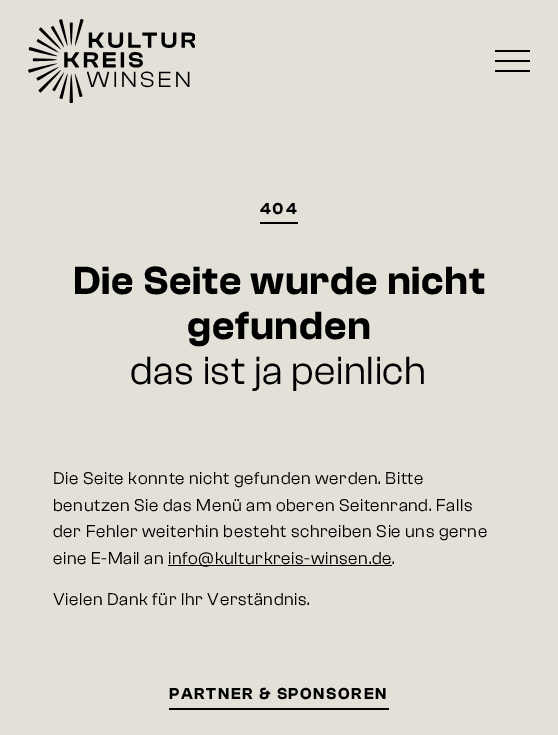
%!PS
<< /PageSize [558 735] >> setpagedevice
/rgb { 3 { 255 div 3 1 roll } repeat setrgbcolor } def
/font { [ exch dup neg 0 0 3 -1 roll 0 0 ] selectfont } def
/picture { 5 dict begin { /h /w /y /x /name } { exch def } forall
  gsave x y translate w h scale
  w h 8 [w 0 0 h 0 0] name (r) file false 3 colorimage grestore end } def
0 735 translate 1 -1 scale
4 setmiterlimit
227 224 216 rgb
0 0 558 735 rectfill
(img/1.rgb) 28 19 167 84 picture
[
  [495 70 35 2 0 0 0]
  [495 50 35 2 0 0 0]
  [495 60 35 2 0 0 0]
  [260 222 38 2 0 0 0]
  [168 565 224 1 0 0 0]
  [169 708 220 2 0 0 0]
] { aload pop rgb rectfill } forall
/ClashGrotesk-SemiBold 16.5 font
260 214 moveto 1.6 0 (404) ashow
/ClashGrotesk-SemiBold 40.75 font
73 294 moveto 0.65 0 (Die Seite wurde nicht) ashow
187 339 moveto 0.65 0 (gefunden) ashow
/ClashGrotesk-Regular 40.75 font
130 384 moveto 0.65 0 (das ist ja peinlich) ashow
/ClashGrotesk-Regular 17.75 font
53 484 moveto 0.65 0 (Die Seite konnte nicht gefunden werden. Bitte) ashow
53 511 moveto 0.65 0 (benutzen Sie das Menü am oberen Seitenrand. Falls) ashow
53 537 moveto 0.65 0 (der Fehler weiterhin besteht schreiben Sie uns gerne) ashow
53 564 moveto 0.65 0 (eine E-Mail an) ashow
168 564 moveto 0.65 0 (info@kulturkreis-winsen.de.) ashow
53 605 moveto 0.65 0 (Vielen Dank für Ihr Verständnis.) ashow
/ClashGrotesk-SemiBold 16.5 font
169 699 moveto 1.6 0 (PARTNER & SPONSOREN) ashow
showpage
